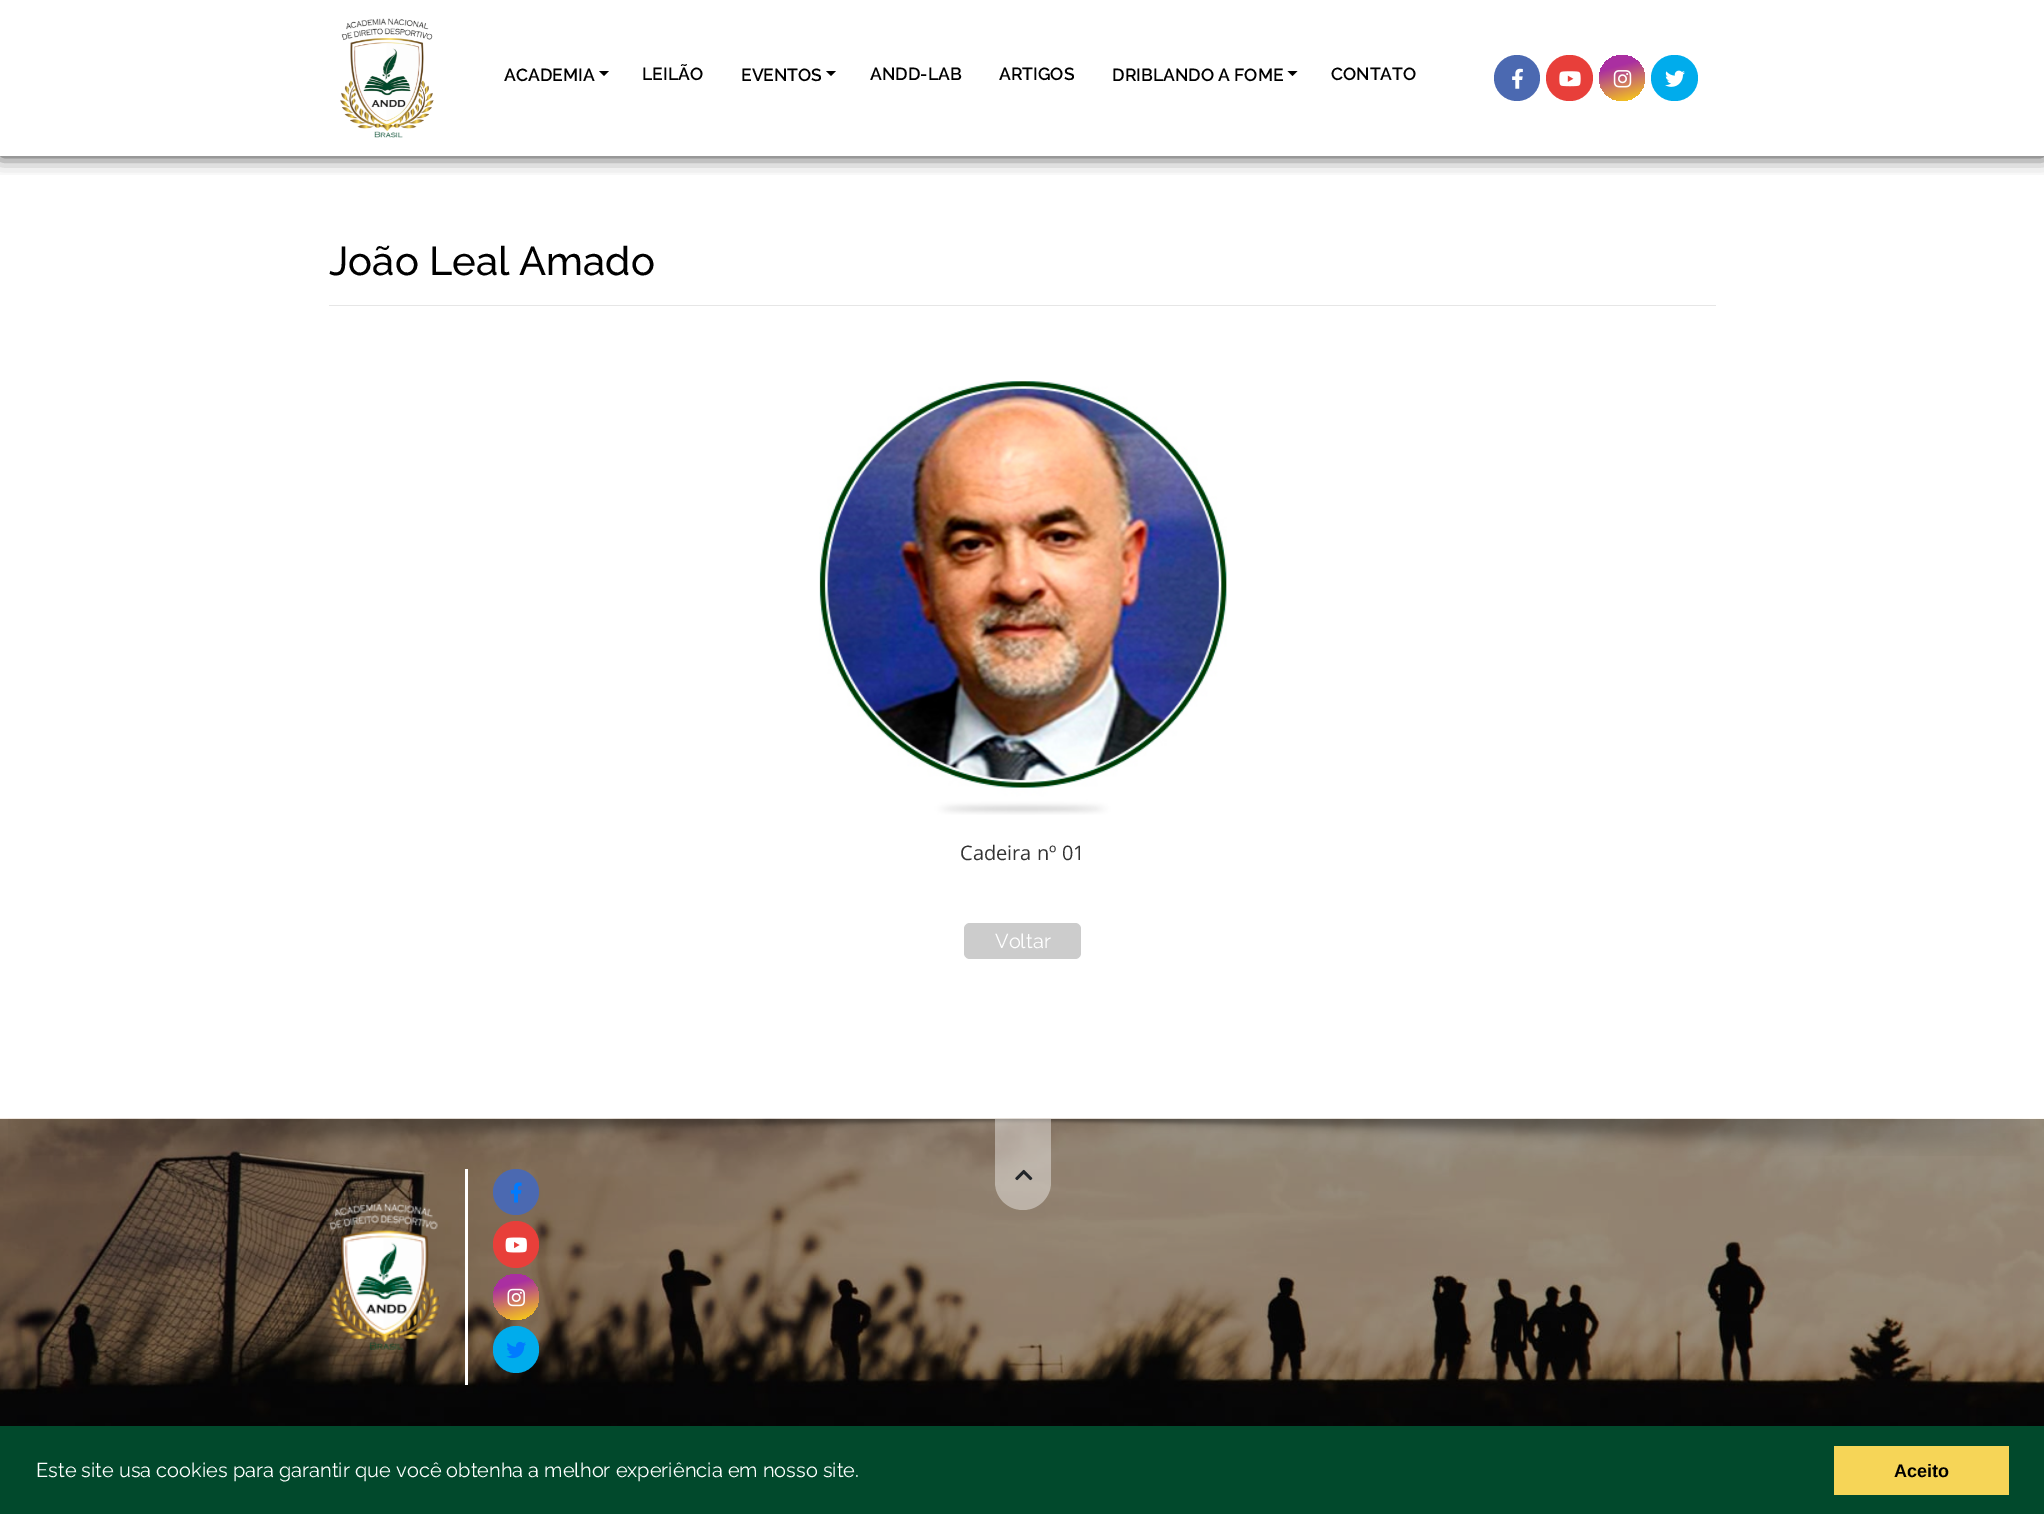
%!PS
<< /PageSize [2044 1514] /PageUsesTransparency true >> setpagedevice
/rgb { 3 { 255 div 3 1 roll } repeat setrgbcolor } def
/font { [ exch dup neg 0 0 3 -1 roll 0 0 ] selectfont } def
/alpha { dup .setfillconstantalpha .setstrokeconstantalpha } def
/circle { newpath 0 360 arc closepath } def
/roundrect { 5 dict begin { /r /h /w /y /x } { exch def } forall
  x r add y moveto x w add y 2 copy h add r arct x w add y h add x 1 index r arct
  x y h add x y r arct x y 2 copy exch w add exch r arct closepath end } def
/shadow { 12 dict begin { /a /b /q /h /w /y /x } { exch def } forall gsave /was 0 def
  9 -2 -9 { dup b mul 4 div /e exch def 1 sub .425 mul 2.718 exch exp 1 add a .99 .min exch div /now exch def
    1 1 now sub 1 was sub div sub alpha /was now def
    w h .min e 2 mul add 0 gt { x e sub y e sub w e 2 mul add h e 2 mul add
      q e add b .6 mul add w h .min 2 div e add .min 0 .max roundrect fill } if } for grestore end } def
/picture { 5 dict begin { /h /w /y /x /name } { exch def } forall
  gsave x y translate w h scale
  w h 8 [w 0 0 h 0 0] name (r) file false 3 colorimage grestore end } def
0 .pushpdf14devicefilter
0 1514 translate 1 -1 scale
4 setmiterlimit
255 255 255 rgb
0 0 2044 1514 rectfill
gsave
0 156 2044 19 rectclip
0 0 0 rgb
0 0 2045 156 0 9.5 0.8 shadow
grestore
(img/1.rgb) 340 18 94 120 picture
0 0 0 rgb
599 71 moveto 609 71 lineto 604 76 lineto closepath fill
826 71 moveto 836 71 lineto 831 76 lineto closepath fill
1287.5 71 moveto 1297.5 71 lineto 1292.5 76 lineto closepath fill
75 105 177 rgb
1517 78 23 circle fill
(img/2.rgb) 1512 68 11 21 picture
232 63 58 rgb
1546 55 47 46 23 roundrect fill
(img/3.rgb) 1559 71 22 16 picture
gsave 1622 78 23 circle clip newpath
<< /ShadingType 2 /ColorSpace /DeviceRGB /Coords [1614 51 1630 106] /Extend [true true] /Function << /FunctionType 3 /Domain [0 1] /Functions [<< /FunctionType 2 /Domain [0 1] /C0 [0.667 0.184 0.631] /C1 [0.667 0.184 0.631] /N 1 >> << /FunctionType 2 /Domain [0 1] /C0 [0.667 0.184 0.631] /C1 [0.969 0.792 0.094] /N 1 >> << /FunctionType 2 /Domain [0 1] /C0 [0.969 0.792 0.094] /C1 [0.969 0.792 0.094] /N 1 >>] /Bounds [0.27 0.94] /Encode [0 1 0 1 0 1] >> >> shfill grestore
(img/4.rgb) 1613 70 19 18 picture
0 172 236 rgb
1651 55 47 46 23 roundrect fill
(img/5.rgb) 1665 70 20 17 picture
230 230 230 rgb
329 305 1387 1 rectfill
(img/6.rgb) 819 381 408 434 picture
204 204 204 rgb
964 923 117 36 6 roundrect fill
(img/7.rgb) 0 1118 2044 308 picture
(img/8.rgb) 8 1118 2022 38 picture
(img/9.rgb) 328 1203 112 147 picture
255 255 255 rgb
465 1169 3 216 rectfill
75 105 177 rgb
516 1192 23 circle fill
(img/10.rgb) 510 1182 12 21 picture
232 63 58 rgb
493 1221 46 47 23 roundrect fill
(img/11.rgb) 505 1237 22 16 picture
gsave 516 1297 23 circle clip newpath
<< /ShadingType 2 /ColorSpace /DeviceRGB /Coords [508 1269 524 1324] /Extend [true true] /Function << /FunctionType 3 /Domain [0 1] /Functions [<< /FunctionType 2 /Domain [0 1] /C0 [0.667 0.184 0.631] /C1 [0.667 0.184 0.631] /N 1 >> << /FunctionType 2 /Domain [0 1] /C0 [0.667 0.184 0.631] /C1 [0.969 0.792 0.094] /N 1 >> << /FunctionType 2 /Domain [0 1] /C0 [0.969 0.792 0.094] /C1 [0.969 0.792 0.094] /N 1 >>] /Bounds [0.27 0.94] /Encode [0 1 0 1 0 1] >> >> shfill grestore
(img/12.rgb) 507 1288 18 19 picture
0 172 236 rgb
493 1326 46 47 23 roundrect fill
(img/13.rgb) 506 1341 20 18 picture
0.4 alpha
255 255 255 rgb
995 1119 moveto 1051 1119 lineto 1051 1182 lineto 1051 1197.5 1038.5 1210 1023 1210 curveto 1007.5 1210 995 1197.5 995 1182 curveto closepath fill
1 alpha
(img/14.rgb) 1015 1169 18 12 picture
1 73 44 rgb
0 1426 2044 88 rectfill
246 213 87 rgb
1834 1446 175 49 rectfill
/Raleway-SemiBold 17.5 font
0 0 0 rgb
[
  [(ACADEMIA) 504 81]
  [(LEILÃO) 642 80]
  [(EVENTOS) 741 81]
  [(ANDD-LAB) 870 80]
  [(ARTIGOS) 999 80]
  [(DRIBLANDO A FOME) 1112 81]
  [(CONTATO) 1331 80]
] { aload pop moveto show } forall
/Raleway-Medium 40 font
329 275 moveto (João Leal Amado) show
/OpenSans-Regular 20 font
51 51 51 rgb
960 860 moveto (Cadeira nº 01) show
/Raleway-Regular 20 font
255 255 255 rgb
995 948 moveto (Voltar) show
36 1477 moveto (Este site usa cookies para garantir que você obtenha a melhor experiência em nosso site.) show
/LiberationSans-Bold 18 font
0 0 0 rgb
1894 1477 moveto (Aceito) show
.poppdf14devicefilter showpage
